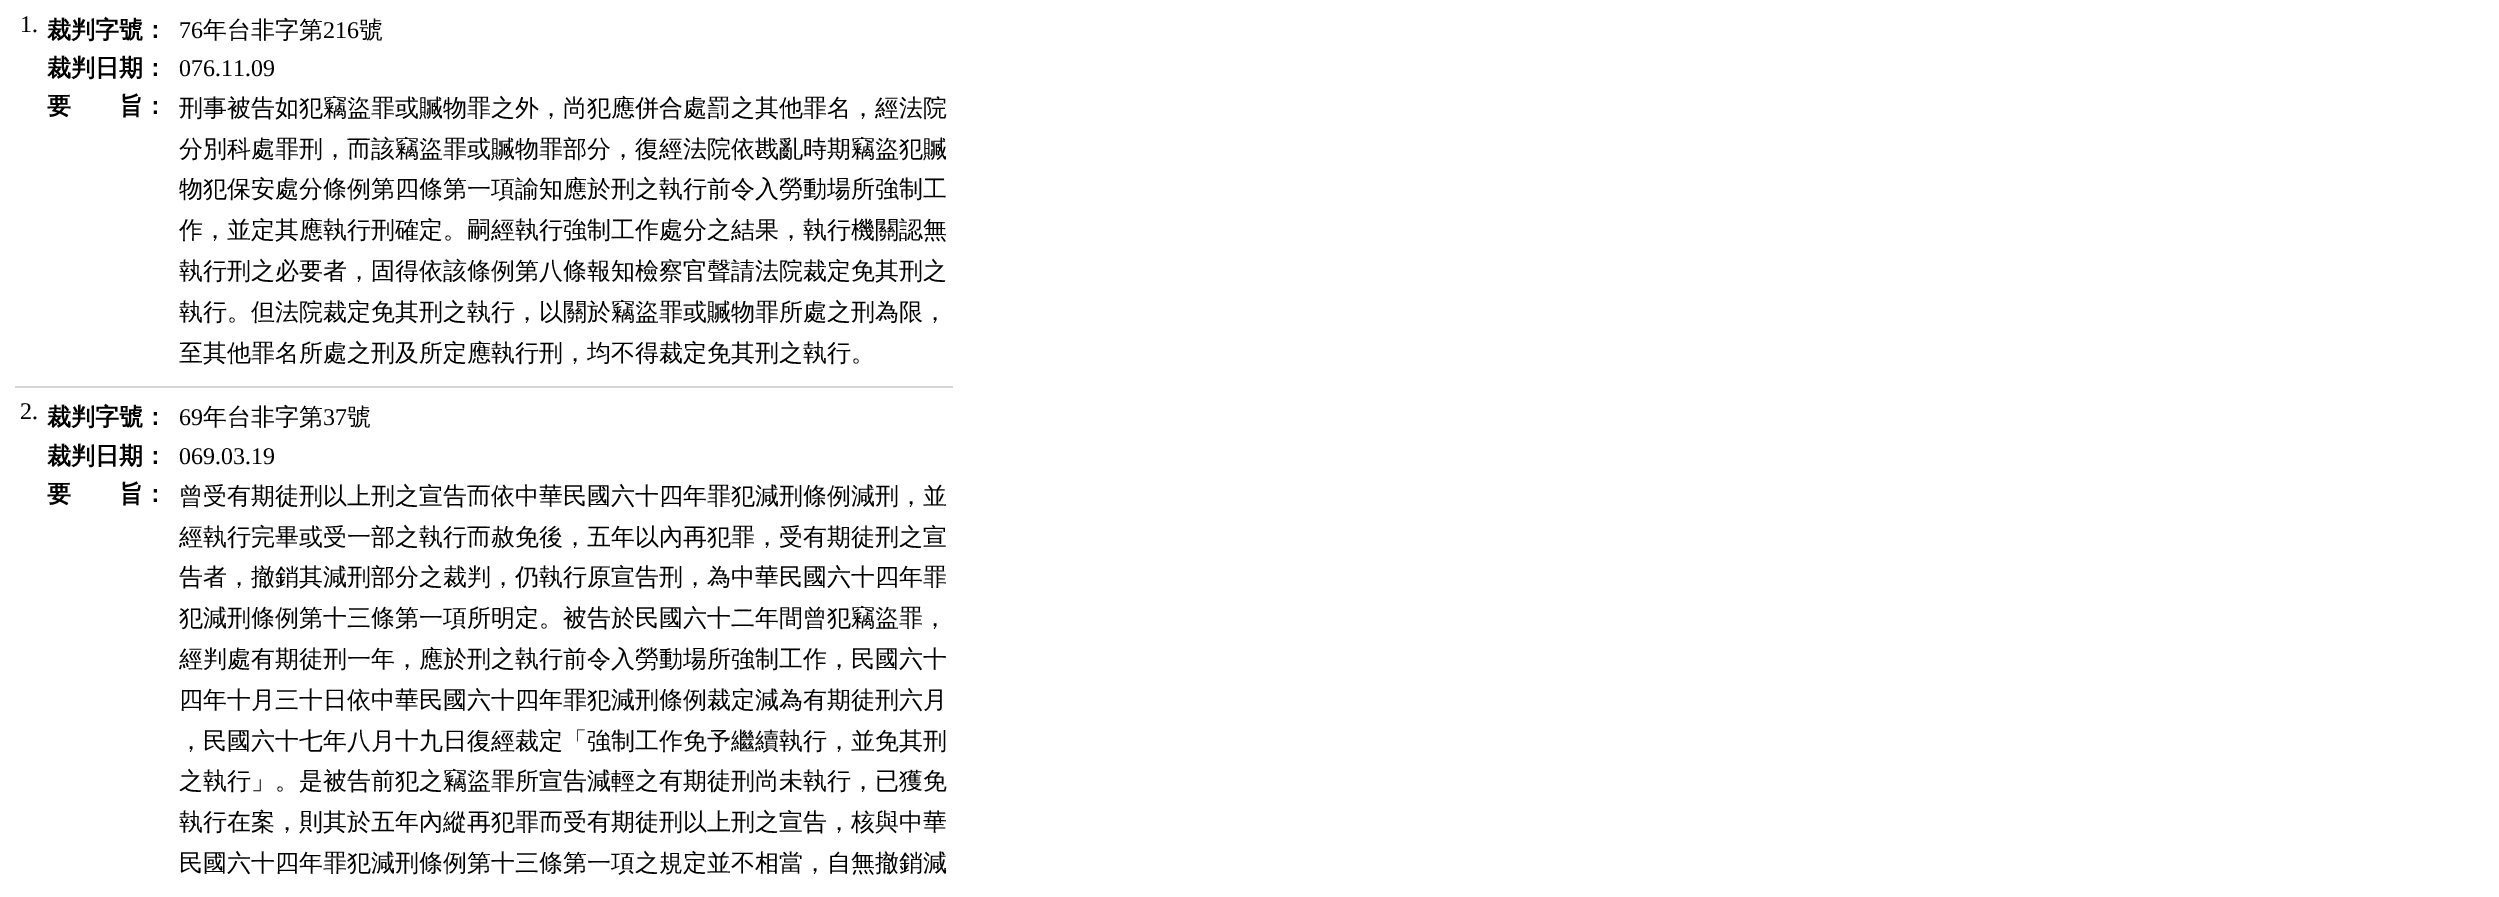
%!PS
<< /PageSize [2499 897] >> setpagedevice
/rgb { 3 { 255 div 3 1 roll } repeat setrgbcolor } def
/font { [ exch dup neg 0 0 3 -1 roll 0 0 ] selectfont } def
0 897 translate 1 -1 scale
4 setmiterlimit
255 255 255 rgb
0 0 2499 897 rectfill
213 213 213 rgb
15 386 938 2 rectfill
/LiberationSerif-Regular 24 font
0 0 0 rgb
20 32 moveto (1.) show
/WenQuanYiZenHei-Bold 24 font
47 38 moveto (裁判字號：) show
/LiberationSerif-Regular 24 font
179 38 moveto (76) show
/WenQuanYiZenHei-Medium 24 font
203 38 moveto (年台非字第) show
/LiberationSerif-Regular 24 font
323 38 moveto (216) show
/WenQuanYiZenHei-Medium 24 font
359 38 moveto (號) show
/WenQuanYiZenHei-Bold 24 font
47 76 moveto (裁判日期：) show
/LiberationSerif-Regular 24 font
179 76 moveto (076.11.09) show
/WenQuanYiZenHei-Bold 24 font
47 114 moveto (要　　旨：) show
/WenQuanYiZenHei-Medium 24 font
[
  [(刑事被告如犯竊盜罪或贓物罪之外，尚犯應併合處罰之其他罪名，經法院) 179 116]
  [(分別科處罪刑，而該竊盜罪或贓物罪部分，復經法院依戡亂時期竊盜犯贓) 179 157]
  [(物犯保安處分條例第四條第一項諭知應於刑之執行前令入勞動場所強制工) 179 197]
  [(作，並定其應執行刑確定。嗣經執行強制工作處分之結果，執行機關認無) 179 238]
  [(執行刑之必要者，固得依該條例第八條報知檢察官聲請法院裁定免其刑之) 179 279]
  [(執行。但法院裁定免其刑之執行，以關於竊盜罪或贓物罪所處之刑為限，) 179 320]
  [(至其他罪名所處之刑及所定應執行刑，均不得裁定免其刑之執行。) 179 361]
] { aload pop moveto show } forall
/LiberationSerif-Regular 24 font
20 419 moveto (2.) show
/WenQuanYiZenHei-Bold 24 font
47 425 moveto (裁判字號：) show
/LiberationSerif-Regular 24 font
179 425 moveto (69) show
/WenQuanYiZenHei-Medium 24 font
203 425 moveto (年台非字第) show
/LiberationSerif-Regular 24 font
323 425 moveto (37) show
/WenQuanYiZenHei-Medium 24 font
347 425 moveto (號) show
/WenQuanYiZenHei-Bold 24 font
47 464 moveto (裁判日期：) show
/LiberationSerif-Regular 24 font
179 464 moveto (069.03.19) show
/WenQuanYiZenHei-Bold 24 font
47 502 moveto (要　　旨：) show
/WenQuanYiZenHei-Medium 24 font
[
  [(曾受有期徒刑以上刑之宣告而依中華民國六十四年罪犯減刑條例減刑，並) 179 504]
  [(經執行完畢或受一部之執行而赦免後，五年以內再犯罪，受有期徒刑之宣) 179 545]
  [(告者，撤銷其減刑部分之裁判，仍執行原宣告刑，為中華民國六十四年罪) 179 585]
  [(犯減刑條例第十三條第一項所明定。被告於民國六十二年間曾犯竊盜罪，) 179 626]
  [(經判處有期徒刑一年，應於刑之執行前令入勞動場所強制工作，民國六十) 179 667]
  [(四年十月三十日依中華民國六十四年罪犯減刑條例裁定減為有期徒刑六月) 179 708]
  [(，民國六十七年八月十九日復經裁定「強制工作免予繼續執行，並免其刑) 179 749]
  [(之執行」。是被告前犯之竊盜罪所宣告減輕之有期徒刑尚未執行，已獲免) 179 789]
  [(執行在案，則其於五年內縱再犯罪而受有期徒刑以上刑之宣告，核與中華) 179 830]
  [(民國六十四年罪犯減刑條例第十三條第一項之規定並不相當，自無撤銷減) 179 871]
] { aload pop moveto show } forall
showpage
